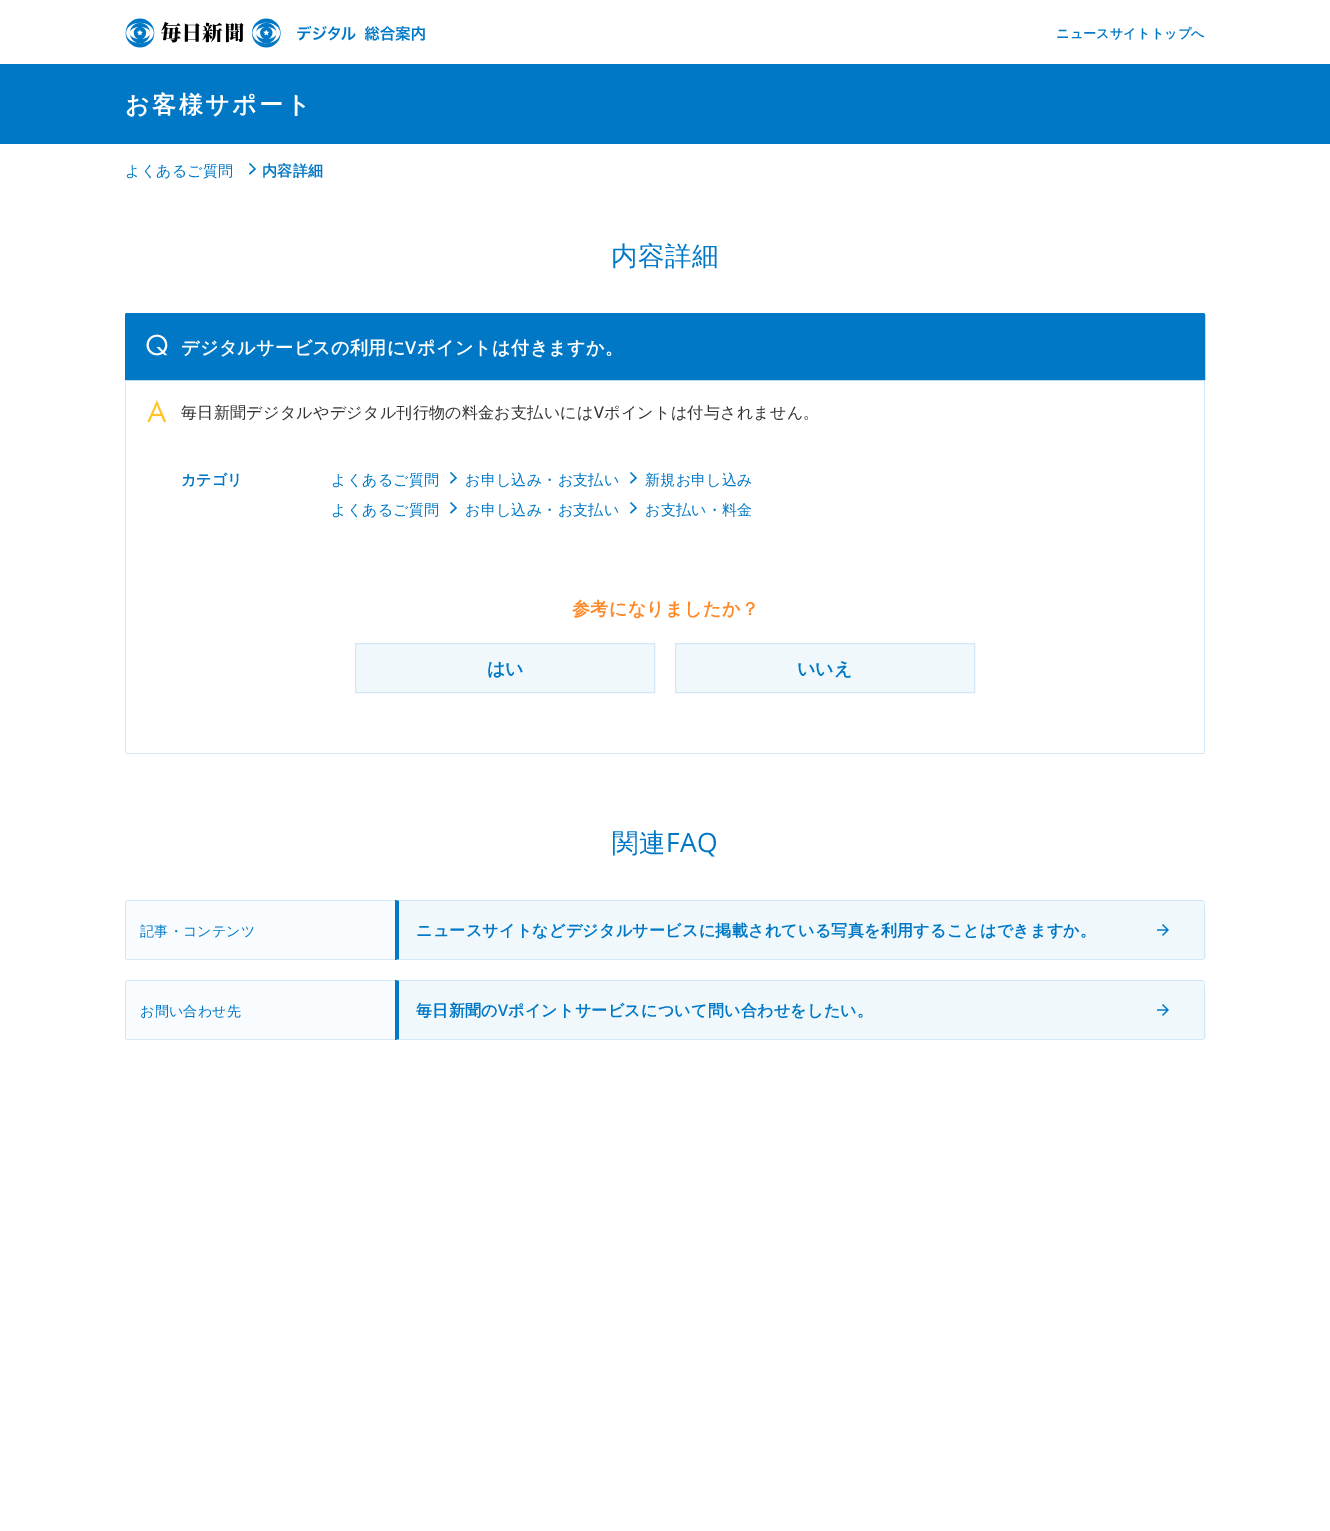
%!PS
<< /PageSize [1330 1531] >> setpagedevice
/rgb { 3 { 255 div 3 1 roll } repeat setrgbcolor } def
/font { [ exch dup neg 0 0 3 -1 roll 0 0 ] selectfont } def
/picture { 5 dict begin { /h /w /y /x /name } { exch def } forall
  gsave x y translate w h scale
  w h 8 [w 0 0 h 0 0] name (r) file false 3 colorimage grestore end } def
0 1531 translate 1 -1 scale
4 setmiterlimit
255 255 255 rgb
0 0 1330 1531 rectfill
(img/1.rgb) 125 18 300 30 picture
0 120 198 rgb
0 64 1330 80 rectfill
1.4 setlinewidth
249.5 163.5 moveto 255 169 lineto 249.5 174 lineto stroke
127 313.5 moveto 1203 313.5 lineto 1204 313.5 1204.5 314 1204.5 315 curveto 1204.5 379.5 lineto 125.5 379.5 lineto 125.5 315 lineto 125.5 314 126 313.5 127 313.5 curveto closepath gsave fill grestore
1 setlinewidth
stroke
(img/2.rgb) 146 334 22 22 picture
[
  [1204 380 1 373 212 231 246]
  [126 753 1078 1 212 231 246]
  [125 380 1 373 212 231 246]
] { aload pop rgb rectfill } forall
(img/3.rgb) 147 400 20 22 picture
0 120 198 rgb
1.4 setlinewidth
450.5 472.5 moveto 456 478 lineto 450.5 483 lineto stroke
630.5 472.5 moveto 636 478 lineto 630.5 483 lineto stroke
450.5 502.5 moveto 456 508 lineto 450.5 513 lineto stroke
630.5 502.5 moveto 636 508 lineto 630.5 513 lineto stroke
240 248 252 rgb
355.5 643.5 moveto 654.5 643.5 lineto 654.5 692.5 lineto 355.5 692.5 lineto closepath gsave fill grestore
212 231 246 rgb
1 setlinewidth
stroke
240 248 252 rgb
675.5 643.5 moveto 974.5 643.5 lineto 974.5 692.5 lineto 675.5 692.5 lineto closepath gsave fill grestore
212 231 246 rgb
stroke
248 252 255 rgb
127 900 moveto 395 900 lineto 395 960 lineto 127 960 lineto 126 960 125 959 125 958 curveto 125 902 lineto 125 901 126 900 127 900 curveto closepath fill
[
  [126 900 269 1 212 231 246]
  [126 959 269 1 212 231 246]
  [125 901 1 58 212 231 246]
] { aload pop rgb rectfill } forall
240 248 252 rgb
399 901 moveto 1203 901 lineto 1203.5 901 1204 901.5 1204 902 curveto 1204 958 lineto 1204 958.5 1203.5 959 1203 959 curveto 399 959 lineto closepath fill
(img/4.rgb) 1157 924 12 12 picture
212 231 246 rgb
395 900 moveto 399 901 lineto 1203 901 lineto 1204 902 lineto 1204 901 lineto 1203 900 lineto closepath fill
1205 958 moveto 1205 952 1206 902 1204 901 curveto 1204 902 lineto 1204 958 lineto 1204 959 lineto closepath fill
1203 960 moveto 1204 959 lineto 1204 958 lineto 1203 959 lineto 399 959 lineto 395 960 lineto closepath fill
0 120 198 rgb
395 900 moveto 395 960 lineto 399 959 lineto 399 901 lineto closepath fill
248 252 255 rgb
127 980 moveto 395 980 lineto 395 1040 lineto 127 1040 lineto 126 1040 125 1039 125 1038 curveto 125 982 lineto 125 981 126 980 127 980 curveto closepath fill
[
  [126 980 269 1 212 231 246]
  [126 1039 269 1 212 231 246]
  [125 981 1 58 212 231 246]
] { aload pop rgb rectfill } forall
240 248 252 rgb
399 981 moveto 1203 981 lineto 1203.5 981 1204 981.5 1204 982 curveto 1204 1038 lineto 1204 1038.5 1203.5 1039 1203 1039 curveto 399 1039 lineto closepath fill
(img/4.rgb) 1157 1004 12 12 picture
212 231 246 rgb
395 980 moveto 399 981 lineto 1203 981 lineto 1204 982 lineto 1204 981 lineto 1203 980 lineto closepath fill
1205 1038 moveto 1205 1032 1206 982 1204 981 curveto 1204 982 lineto 1204 1038 lineto 1204 1039 lineto closepath fill
1203 1040 moveto 1204 1039 lineto 1204 1038 lineto 1203 1039 lineto 399 1039 lineto 395 1040 lineto closepath fill
0 120 198 rgb
395 980 moveto 395 1040 lineto 399 1039 lineto 399 981 lineto closepath fill
/WenQuanYiZenHei-Bold 13 font
1056 38 moveto 0.25 0 (ニュースサイトトップへ) ashow
/WenQuanYiZenHei-Bold 24 font
255 255 255 rgb
125 113 moveto 2.5 0 (お客様サポート) ashow
/WenQuanYiZenHei-Medium 15 font
0 120 198 rgb
125 176 moveto 0.25 0 (よくあるご質問) ashow
/WenQuanYiZenHei-Bold 15 font
262 176 moveto 0.25 0 (内容詳細) ashow
/WenQuanYiZenHei-Medium 26.5 font
611 265 moveto 0.5 0 (内容詳細) ashow
/WenQuanYiZenHei-Bold 18 font
255 255 255 rgb
181 354 moveto 0.4 0 (デジタルサービスの利用に) ashow
/OpenSans-SemiBold 18 font
405 354 moveto 0.4 0 (V) ashow
/WenQuanYiZenHei-Bold 18 font
417 354 moveto 0.4 0 (ポイントは付きますか。) ashow
/WenQuanYiZenHei-Medium 16 font
51 51 51 rgb
181 418 moveto 0.3 0 (毎日新聞デジタルやデジタル刊行物の料金お支払いには) ashow
/OpenSans-Medium 16 font
594 418 moveto 0.3 0 (V) ashow
/WenQuanYiZenHei-Medium 16 font
604 418 moveto 0.3 0 (ポイントは付与されません。) ashow
/WenQuanYiZenHei-Bold 15 font
0 120 198 rgb
181 485 moveto (カテゴリ) show
/WenQuanYiZenHei-Medium 15 font
331 485 moveto 0.25 0 (よくあるご質問) ashow
465 485 moveto 0.25 0 (お申し込み・お支払い) ashow
645 485 moveto 0.25 0 (新規お申し込み) ashow
331 515 moveto 0.25 0 (よくあるご質問) ashow
465 515 moveto 0.25 0 (お申し込み・お支払い) ashow
645 515 moveto 0.25 0 (お支払い・料金) ashow
/WenQuanYiZenHei-Bold 18 font
255 136 39 rgb
572 615 moveto 0.4 0 (参考になりましたか？) ashow
0 120 198 rgb
487 675 moveto (はい) show
797 675 moveto (いいえ) show
/WenQuanYiZenHei-Medium 26.5 font
612 852 moveto 0.5 0 (関連) ashow
/OpenSans-Regular 26.5 font
666 852 moveto 0.5 0 (FAQ) ashow
/WenQuanYiZenHei-Medium 14 font
140 936 moveto 0.25 0 (記事・コンテンツ) ashow
/WenQuanYiZenHei-Bold 16 font
416 936 moveto 0.3 0 (ニュースサイトなどデジタルサービスに掲載されている写真を利用することはできますか。) ashow
/WenQuanYiZenHei-Medium 14 font
140 1016 moveto 0.25 0 (お問い合わせ先) ashow
/WenQuanYiZenHei-Bold 16 font
416 1016 moveto 0.3 0 (毎日新聞の) ashow
/OpenSans-SemiBold 16 font
498 1016 moveto 0.3 0 (V) ashow
/WenQuanYiZenHei-Bold 16 font
508 1016 moveto 0.3 0 (ポイントサービスについて問い合わせをしたい。) ashow
showpage
